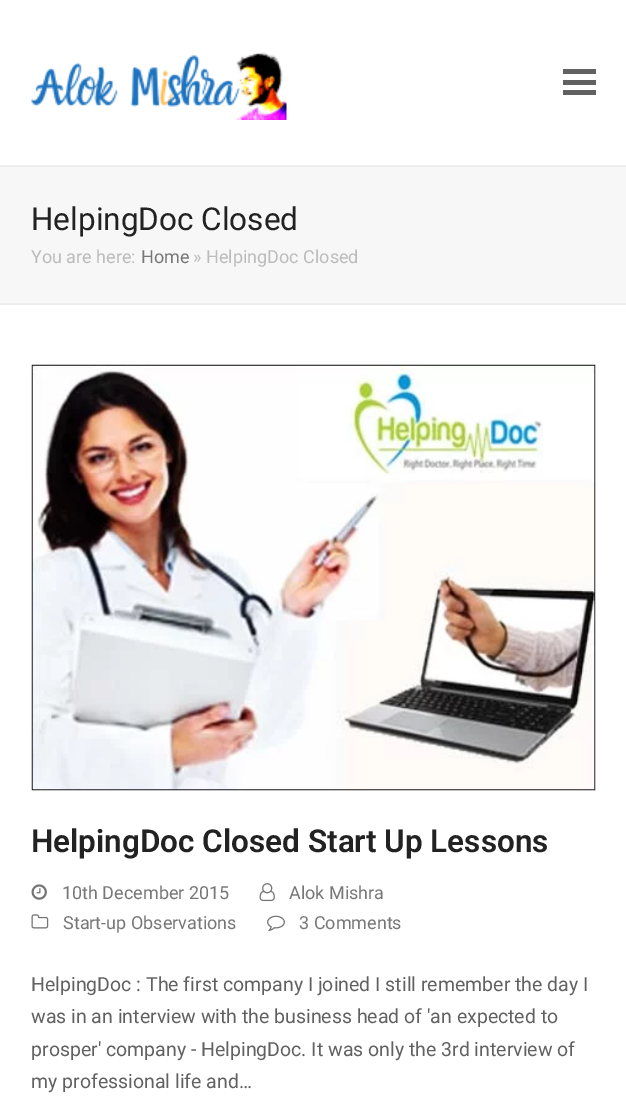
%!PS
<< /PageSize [626 1110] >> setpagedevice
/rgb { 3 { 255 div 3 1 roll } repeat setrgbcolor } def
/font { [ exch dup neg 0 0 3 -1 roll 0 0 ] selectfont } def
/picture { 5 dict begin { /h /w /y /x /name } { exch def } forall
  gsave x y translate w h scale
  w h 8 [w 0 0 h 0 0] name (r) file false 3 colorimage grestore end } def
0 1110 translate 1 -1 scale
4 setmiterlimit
255 255 255 rgb
0 0 626 1110 rectfill
(img/1.rgb) 31 52 256 68 picture
[
  [563 80 33 5 97 97 97]
  [563 69 33 5 97 97 97]
  [563 90 33 5 97 97 97]
  [0 167 626 136 247 247 247]
  [0 165 626 2 238 238 238]
  [0 303 626 2 238 238 238]
] { aload pop rgb rectfill } forall
(img/2.rgb) 31 364 565 427 picture
(img/3.rgb) 31 884 16 16 picture
(img/4.rgb) 259 883 16 19 picture
(img/5.rgb) 31 914 18 15 picture
(img/6.rgb) 267 915 18 16 picture
/Roboto-Regular 31.5 font
34 34 34 rgb
31 230 moveto (HelpingDoc Closed) show
/Roboto-Regular 18 font
188 188 188 rgb
31 263 moveto (You are here:) show
119 119 119 rgb
141 263 moveto (Home) show
188 188 188 rgb
193 263 moveto (» HelpingDoc Closed) show
/Roboto-SemiBold 31.5 font
34 34 34 rgb
31 852 moveto (HelpingDoc Closed Start Up Lessons) show
/Roboto-Regular 18 font
119 119 119 rgb
[
  [(10th December 2015) 62 899]
  [(Alok Mishra) 289 899]
  [(Start-up Observations) 63 929]
  [(3 Comments) 299 929]
] { aload pop moveto show } forall
/Roboto-Regular 19.5 font
97 97 97 rgb
[
  [(HelpingDoc : The first company I joined I still remember the day I) 31 991]
  [(was in an interview with the business head of 'an expected to) 31 1023]
  [(prosper' company - HelpingDoc. It was only the 3rd interview of) 31 1056]
  [(my professional life and…) 31 1088]
] { aload pop moveto show } forall
showpage
